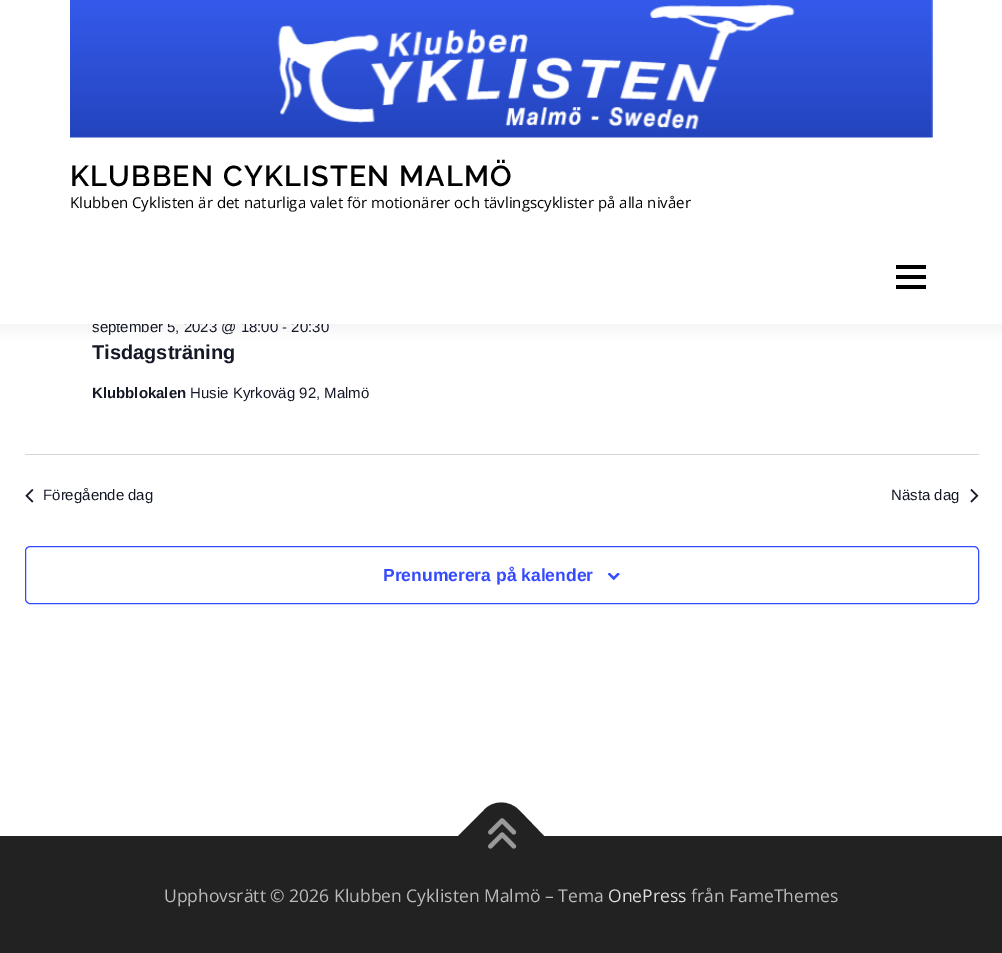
%!PS
<< /PageSize [1002 953] /PageUsesTransparency true >> setpagedevice
/rgb { 3 { 255 div 3 1 roll } repeat setrgbcolor } def
/font { [ exch dup neg 0 0 3 -1 roll 0 0 ] selectfont } def
/alpha { dup .setfillconstantalpha .setstrokeconstantalpha } def
/roundrect { 5 dict begin { /r /h /w /y /x } { exch def } forall
  x r add y moveto x w add y 2 copy h add r arct x w add y h add x 1 index r arct
  x y h add x y r arct x y 2 copy exch w add exch r arct closepath end } def
/shadow { 12 dict begin { /a /b /q /h /w /y /x } { exch def } forall gsave /was 0 def
  9 -2 -9 { dup b mul 4 div /e exch def 1 sub .425 mul 2.718 exch exp 1 add a .99 .min exch div /now exch def
    1 1 now sub 1 was sub div sub alpha /was now def
    w h .min e 2 mul add 0 gt { x e sub y e sub w e 2 mul add h e 2 mul add
      q e add b .6 mul add w h .min 2 div e add .min 0 .max roundrect fill } if } for grestore end } def
/picture { 5 dict begin { /h /w /y /x /name } { exch def } forall
  gsave x y translate w h scale
  w h 8 [w 0 0 h 0 0] name (r) file false 3 colorimage grestore end } def
0 .pushpdf14devicefilter
0 953 translate 1 -1 scale
4 setmiterlimit
255 255 255 rgb
0 0 1002 953 rectfill
50 50 50 rgb
0 6 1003 324 0 6 0.06 shadow
213 213 213 rgb
25 454 954 1 rectfill
(img/2.rgb) 25 489 9 14 picture
(img/3.rgb) 970 489 9 14 picture
51 74 255 rgb
25.5 546.5 953 57 4.5 roundrect stroke
(img/4.rgb) 608 573 12 7 picture
34 34 34 rgb
0 836 1002 117 rectfill
457 837 moveto 484 810 lineto 493 800 509 800 519 810 curveto 545 837 lineto 501 881 lineto closepath fill
(img/5.rgb) 488 818 29 31 picture
/LiberationSans-Regular 15 font
20 24 39 rgb
92 332 moveto (september 5, 2023 @ 18:00 - 20:30) show
[
  [0 1 1002 323 255 255 255]
  [896 285 30 4 0 0 0]
  [896 265 30 4 0 0 0]
  [896 275 30 4 0 0 0]
] { aload pop rgb rectfill } forall
/OpenSans-Regular 15 font
70 208 moveto (Klubben Cyklisten är det naturliga valet för motionärer och tävlingscyklister på alla nivåer) show
/Raleway-SemiBold 28.75 font
70 186 moveto 1.25 0 (KLUBBEN CYKLISTEN MALMÖ) ashow
(img/1.rgb) 70 0 863 138 picture
/LiberationSans-Bold 20 font
20 24 39 rgb
92 359 moveto (Tisdagsträning) show
/LiberationSans-Bold 15 font
92 398 moveto (Klubblokalen) show
/LiberationSans-Regular 15 font
[
  [(Husie Kyrkoväg 92, Malmö) 190 398]
  [(Föregående dag) 43 500]
  [(Nästa dag) 891 500]
] { aload pop moveto show } forall
/LiberationSans-Bold 17.5 font
51 74 255 rgb
383 581 moveto (Prenumerera på kalender) show
/OpenSans-Regular 17.5 font
187 187 187 rgb
164 902 moveto (Upphovsrätt © 2026 Klubben Cyklisten Malmö – Tema) show
221 221 221 rgb
608 902 moveto (OnePress) show
187 187 187 rgb
691 902 moveto (från FameThemes) show
.poppdf14devicefilter showpage
